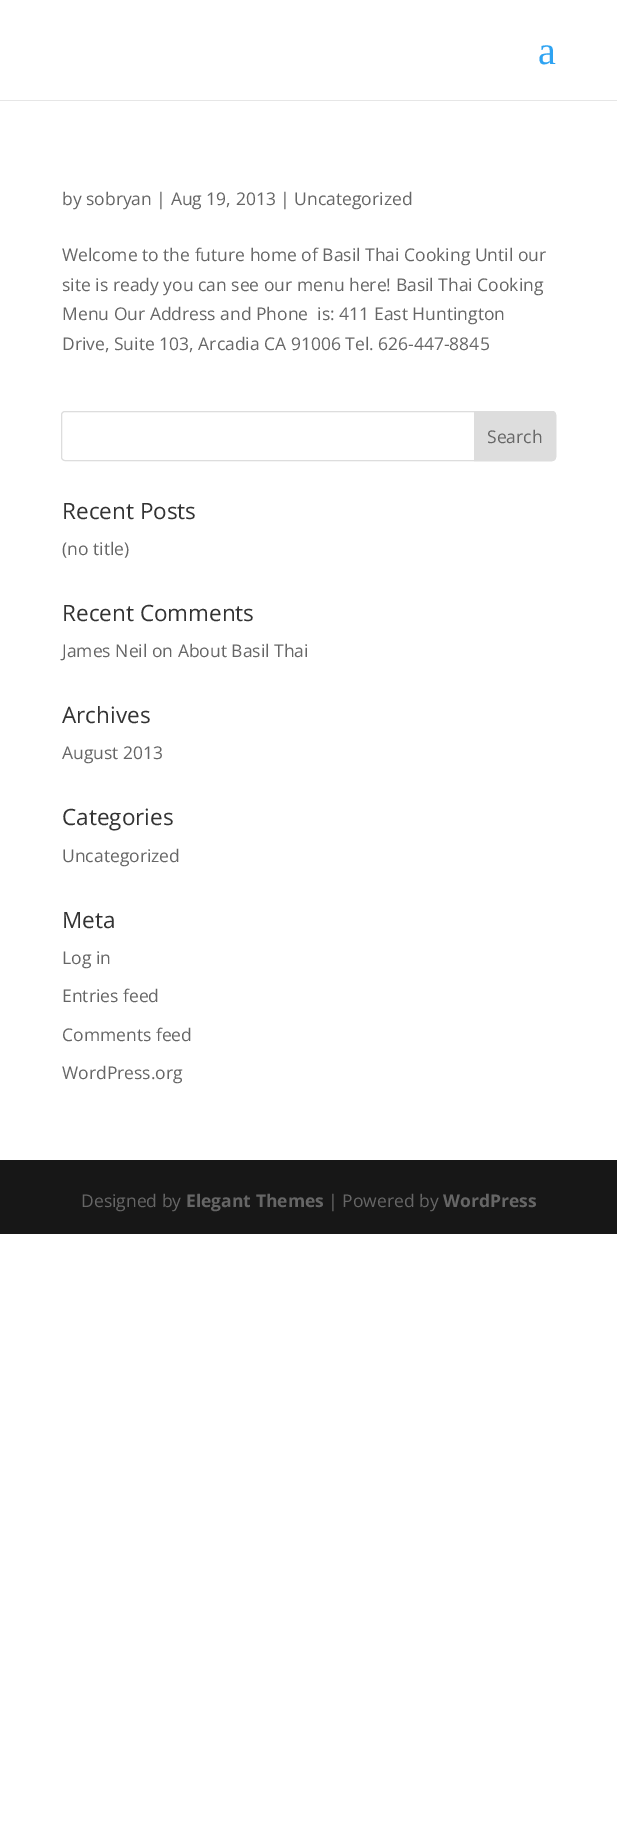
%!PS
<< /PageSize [617 1823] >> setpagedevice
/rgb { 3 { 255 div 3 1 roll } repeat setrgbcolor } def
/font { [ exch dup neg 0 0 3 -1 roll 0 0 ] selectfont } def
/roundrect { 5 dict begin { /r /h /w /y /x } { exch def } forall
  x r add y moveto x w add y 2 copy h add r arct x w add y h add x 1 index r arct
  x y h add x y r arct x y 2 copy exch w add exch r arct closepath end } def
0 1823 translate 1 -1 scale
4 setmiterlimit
255 255 255 rgb
0 0 617 1823 rectfill
230 230 230 rgb
0 100 moveto 0 101 lineto 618 101 lineto 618 1 lineto 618 100 lineto closepath fill
221 221 221 rgb
61.5 411.5 494 49 3.5 roundrect stroke
474.5 411.5 moveto 552 411.5 lineto 554 411.5 555.5 413 555.5 415 curveto 555.5 457 lineto 555.5 459 554 460.5 552 460.5 curveto 474.5 460.5 lineto closepath gsave fill grestore
stroke
23 23 23 rgb
0 1160 617 74 rectfill
/LiberationSerif-Regular 40 font
46 163 242 rgb
538 64 moveto (a) show
/OpenSans-Regular 17.5 font
102 102 102 rgb
[
  [(by sobryan | Aug 19, 2013 | Uncategorized) 62 205]
  [(Welcome to the future home of Basil Thai Cooking Until our) 62 261]
  [(site is ready you can see our menu here! Basil Thai Cooking) 62 291]
  [(Menu Our Address and Phone  is: 411 East Huntington) 62 320]
  [(Drive, Suite 103, Arcadia CA 91006 Tel. 626-447-8845) 62 350]
  [(Search) 487 443]
] { aload pop moveto show } forall
/OpenSans-Regular 22.5 font
51 51 51 rgb
62 519 moveto (Recent Posts) show
/OpenSans-Regular 17.5 font
102 102 102 rgb
62 555 moveto (\(no title\)) show
/OpenSans-Regular 22.5 font
51 51 51 rgb
62 621 moveto (Recent Comments) show
/OpenSans-Regular 17.5 font
102 102 102 rgb
62 657 moveto (James Neil on About Basil Thai) show
/OpenSans-Regular 22.5 font
51 51 51 rgb
62 723 moveto (Archives) show
/OpenSans-Regular 17.5 font
102 102 102 rgb
62 759 moveto (August 2013) show
/OpenSans-Regular 22.5 font
51 51 51 rgb
62 825 moveto (Categories) show
/OpenSans-Regular 17.5 font
102 102 102 rgb
62 862 moveto (Uncategorized) show
/OpenSans-Regular 22.5 font
51 51 51 rgb
62 928 moveto (Meta) show
/OpenSans-Regular 17.5 font
102 102 102 rgb
[
  [(Log in) 62 964]
  [(Entries feed) 62 1002]
  [(Comments feed) 62 1041]
  [(WordPress.org) 62 1079]
  [(Designed by) 81 1207]
] { aload pop moveto show } forall
/OpenSans-Bold 17.5 font
186 1207 moveto (Elegant Themes) show
/OpenSans-Regular 17.5 font
328 1207 moveto (| Powered by) show
/OpenSans-Bold 17.5 font
443 1207 moveto (WordPress) show
showpage
